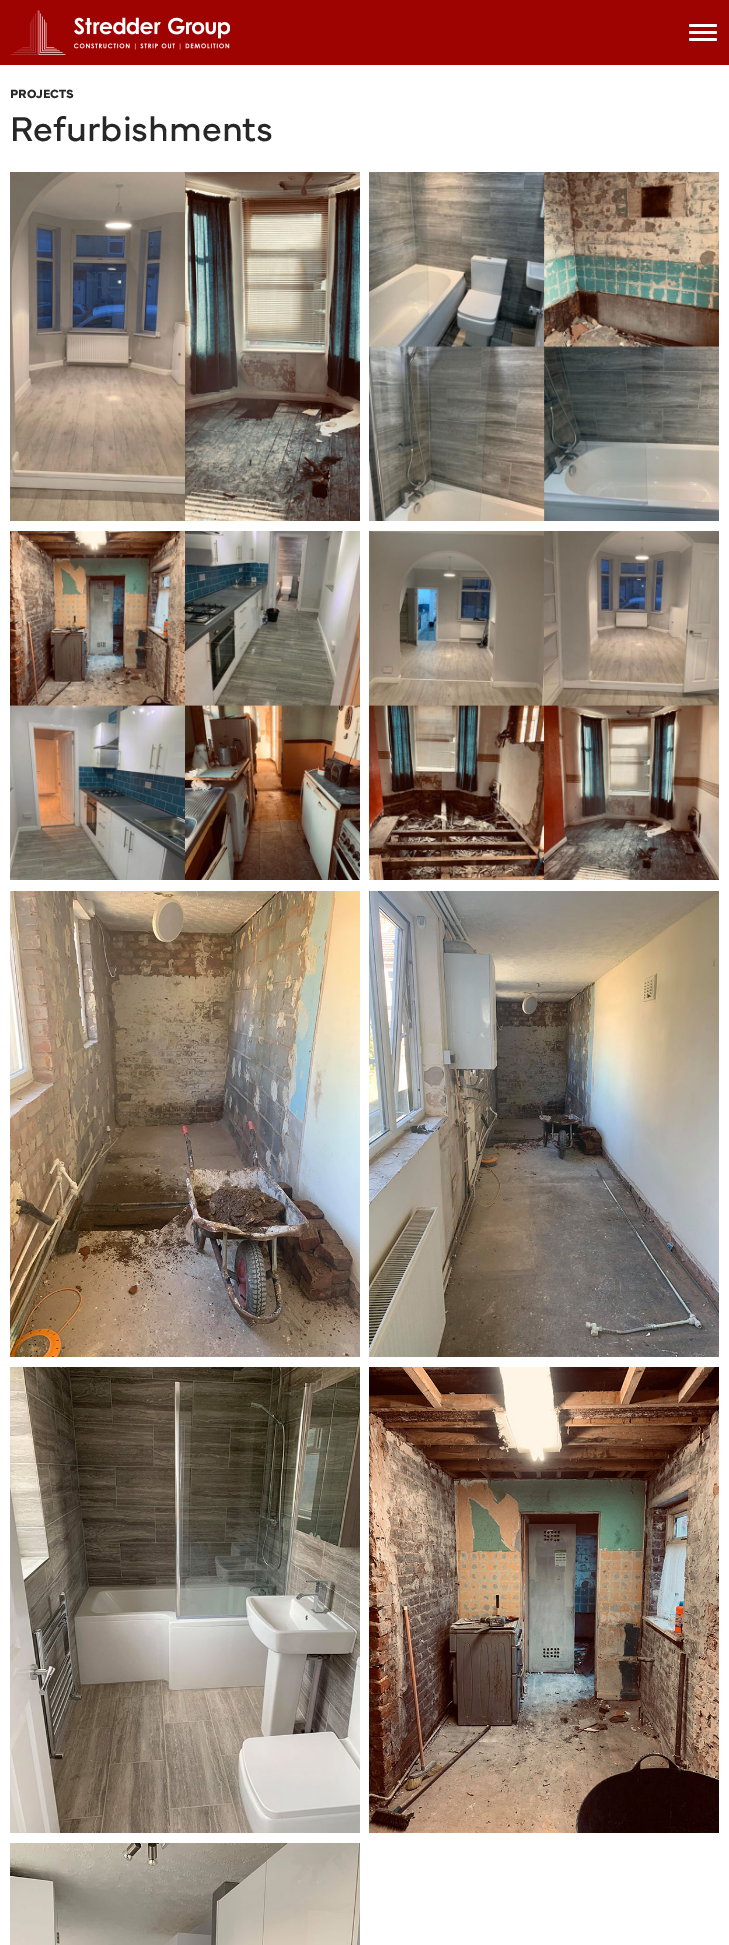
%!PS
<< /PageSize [729 1945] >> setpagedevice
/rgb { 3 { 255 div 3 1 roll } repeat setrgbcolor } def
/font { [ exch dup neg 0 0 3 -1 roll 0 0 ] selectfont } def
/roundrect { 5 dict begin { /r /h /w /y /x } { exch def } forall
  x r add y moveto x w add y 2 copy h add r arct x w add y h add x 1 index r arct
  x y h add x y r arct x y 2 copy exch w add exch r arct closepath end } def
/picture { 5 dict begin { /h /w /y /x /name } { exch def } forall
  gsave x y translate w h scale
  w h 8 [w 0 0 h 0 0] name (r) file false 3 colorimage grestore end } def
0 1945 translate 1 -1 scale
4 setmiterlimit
255 255 255 rgb
0 0 729 1945 rectfill
158 2 1 rgb
0 0 729 65 rectfill
(img/1.rgb) 10 10 220 45 picture
255 255 255 rgb
689 31 28 3 1.5 roundrect fill
689 24 28 3 1.5 roundrect fill
689 38 28 3 1.5 roundrect fill
(img/2.rgb) 10 172 350 349 picture
(img/3.rgb) 369 172 350 349 picture
(img/4.rgb) 10 531 350 349 picture
(img/5.rgb) 369 531 350 349 picture
(img/6.rgb) 10 891 350 466 picture
(img/7.rgb) 369 891 350 466 picture
(img/8.rgb) 10 1367 350 466 picture
(img/9.rgb) 369 1367 350 466 picture
(img/10.rgb) 10 1843 350 102 picture
/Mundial-Bold 12.5 font
39 39 39 rgb
10 98 moveto (PROJECTS) show
/Mundial-Regular 36 font
10 141 moveto (Refurbishments) show
showpage
